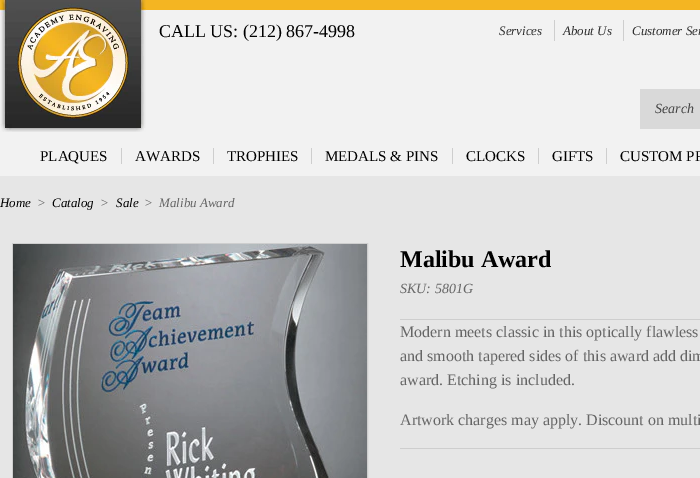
%!PS
<< /PageSize [700 478] >> setpagedevice
/rgb { 3 { 255 div 3 1 roll } repeat setrgbcolor } def
/font { [ exch dup neg 0 0 3 -1 roll 0 0 ] selectfont } def
/picture { 5 dict begin { /h /w /y /x /name } { exch def } forall
  gsave x y translate w h scale
  w h 8 [w 0 0 h 0 0] name (r) file false 3 colorimage grestore end } def
0 478 translate 1 -1 scale
4 setmiterlimit
242 242 242 rgb
0 0 700 478 rectfill
244 181 34 rgb
146 0 554 10 rectfill
(img/1.rgb) 0 0 146 132 picture
[
  [554 20 1 21 206 206 206]
  [623 20 1 21 206 206 206]
  [640 89 60 40 217 217 217]
  [121 148 1 16 206 206 206]
  [213 148 1 16 206 206 206]
  [311 148 1 16 206 206 206]
  [452 148 1 16 206 206 206]
  [538 148 1 16 206 206 206]
  [606 148 1 16 206 206 206]
  [0 176 700 302 230 230 230]
] { aload pop rgb rectfill } forall
206 206 206 rgb
12.5 243.5 355 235 rectstroke
(img/2.rgb) 13 244 354 234 picture
400 319 300 1 rectfill
400 448 300 1 rectfill
/LiberationSerif-Regular 18 font
0 0 0 rgb
159 37 moveto (CALL US: \(212\) 867-4998) show
/LiberationSerif-Italic 13 font
46 46 46 rgb
[
  [(Services) 499 35]
  [(About Us) 563 35]
  [(Customer Ser) 632 35]
] { aload pop moveto show } forall
/LiberationSerif-Italic 14 font
68 68 68 rgb
655 113 moveto (Search) show
/LiberationSerif-Regular 15 font
0 0 0 rgb
[
  [(PLAQUES) 40 161]
  [(AWARDS) 135 161]
  [(TROPHIES) 227 161]
  [(MEDALS & PINS) 325 161]
  [(CLOCKS) 466 161]
  [(GIFTS) 552 161]
  [(CUSTOM PR) 620 161]
] { aload pop moveto show } forall
/LiberationSerif-Italic 13 font
0 207 moveto (Home) show
102 102 102 rgb
37 207 moveto (>) show
0 0 0 rgb
52 207 moveto (Catalog) show
102 102 102 rgb
100 207 moveto (>) show
0 0 0 rgb
116 207 moveto (Sale) show
102 102 102 rgb
144 207 moveto (>) show
159 207 moveto (Malibu Award) show
/LiberationSerif-Bold 24 font
0 0 0 rgb
400 267 moveto (Malibu Award) show
/LiberationSerif-Italic 14 font
102 102 102 rgb
400 293 moveto (SKU: 5801G) show
/LiberationSerif-Regular 16 font
[
  [(Modern meets classic in this optically flawless) 400 337]
  [(and smooth tapered sides of this award add dim) 400 361]
  [(award. Etching is included.) 400 385]
  [(Artwork charges may apply. Discount on multi) 400 425]
] { aload pop moveto show } forall
showpage
